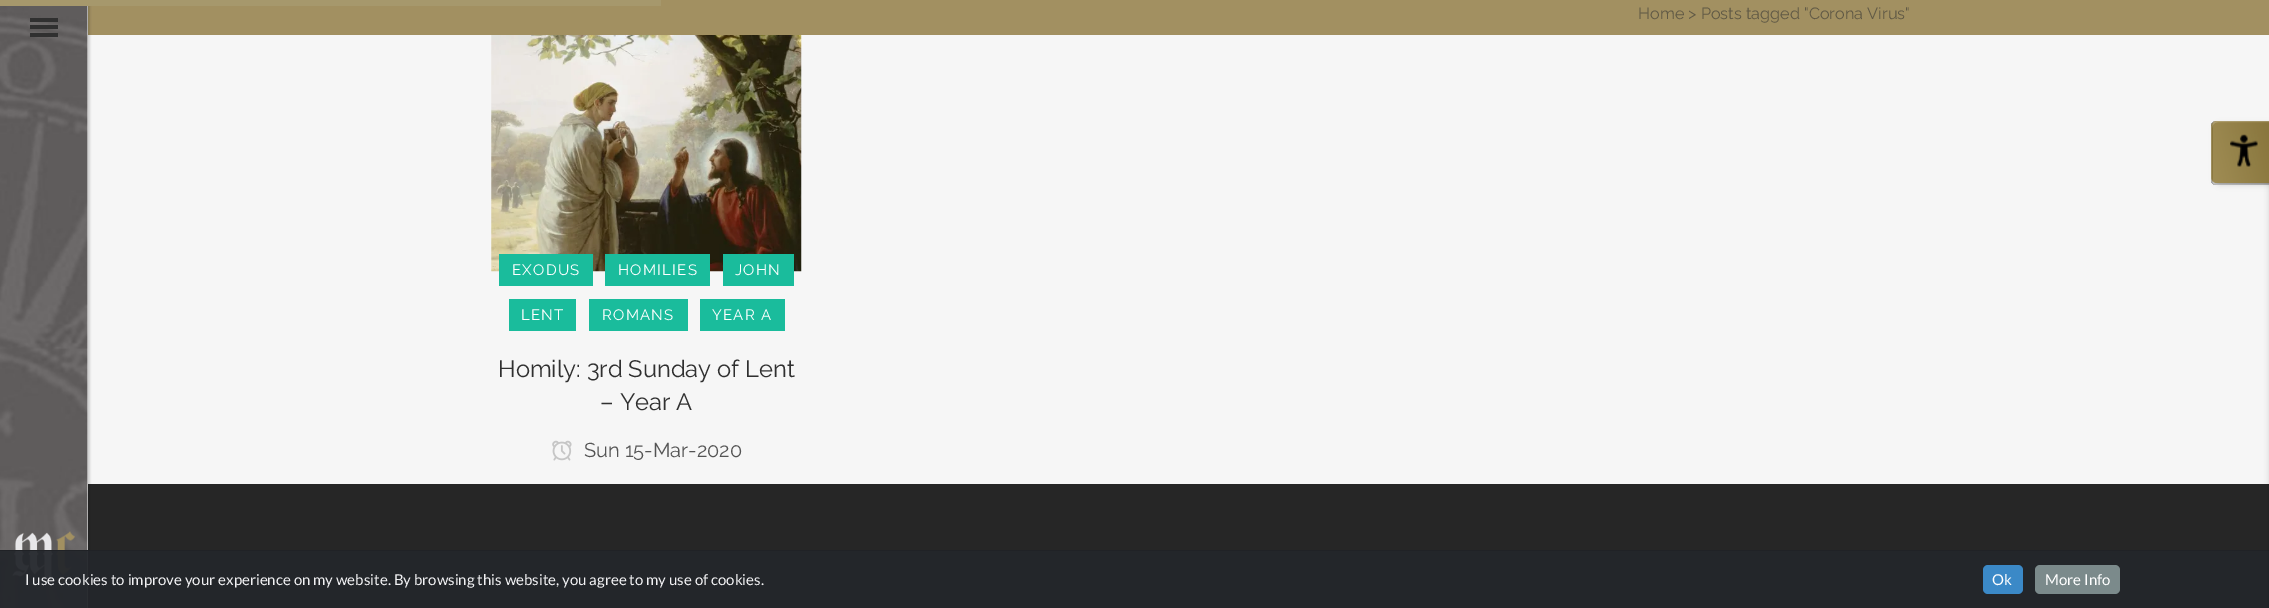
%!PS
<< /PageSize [2269 608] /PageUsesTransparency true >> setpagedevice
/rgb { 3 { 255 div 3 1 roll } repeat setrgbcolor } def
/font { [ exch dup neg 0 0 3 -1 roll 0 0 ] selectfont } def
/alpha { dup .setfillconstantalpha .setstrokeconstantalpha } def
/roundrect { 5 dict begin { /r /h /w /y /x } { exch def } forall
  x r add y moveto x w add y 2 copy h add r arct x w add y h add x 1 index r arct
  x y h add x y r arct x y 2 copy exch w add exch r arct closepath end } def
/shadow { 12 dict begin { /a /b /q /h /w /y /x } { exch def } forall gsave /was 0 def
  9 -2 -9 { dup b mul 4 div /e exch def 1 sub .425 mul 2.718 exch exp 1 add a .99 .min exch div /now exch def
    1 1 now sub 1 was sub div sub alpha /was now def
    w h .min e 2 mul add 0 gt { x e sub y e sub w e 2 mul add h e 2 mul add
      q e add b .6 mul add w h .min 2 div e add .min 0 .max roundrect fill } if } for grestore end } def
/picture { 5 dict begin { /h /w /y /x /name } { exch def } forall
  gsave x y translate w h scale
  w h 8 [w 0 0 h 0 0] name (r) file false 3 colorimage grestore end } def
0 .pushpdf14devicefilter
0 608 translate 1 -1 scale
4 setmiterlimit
246 246 246 rgb
0 0 2269 608 rectfill
162 144 97 rgb
88 0 2181 35 rectfill
38 38 38 rgb
88 484 2181 124 rectfill
0 0 0 rgb
-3 -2 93 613 0 1 0.15 shadow
166 152 108 rgb
0 0 661 6 rectfill
255 255 255 rgb
87 6 1 602 rectfill
(img/1.rgb) 0 6 88 602 picture
[
  [30 25 28 4 48 48 48]
  [30 18 28 4 48 48 48]
  [30 33 28 4 48 48 48]
] { aload pop rgb rectfill } forall
(img/2.rgb) 491 35 311 237 picture
[
  [499 254 94 32 26 188 156]
  [605 254 105 32 26 188 156]
  [723 254 71 32 26 188 156]
  [509 299 67 32 26 188 156]
  [589 299 99 32 26 188 156]
  [700 299 85 32 26 188 156]
] { aload pop rgb rectfill } forall
(img/3.rgb) 552 440 20 21 picture
(img/4.rgb) 12 531 63 53 picture
0 0 0 rgb
2215 124 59 61 6 3 0.14 shadow
0.7 alpha
[
  [0 551 2269 57 50 58 69]
] { aload pop rgb rectfill } forall
1 alpha
[
  [0 550 2269 1 32 34 38]
] { aload pop rgb rectfill } forall
0.8 alpha
[
  [0 551 2269 57 32 34 38]
] { aload pop rgb rectfill } forall
1 alpha
0 1 1 rgb
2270 128 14 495 6 3 0.2 shadow
208 179 92 rgb
2217 121 moveto 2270 121 lineto 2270 183 lineto 2217 183 lineto 2213.5 183 2211 180.5 2211 177 curveto 2211 127 lineto 2211 123.5 2213.5 121 2217 121 curveto closepath fill
gsave
2217 121 moveto 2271 121 lineto 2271 185 lineto 2217 185 lineto 2213.5 185 2211 182.5 2211 179 curveto 2211 127 lineto 2211 123.5 2213.5 121 2217 121 curveto closepath clip newpath
gsave 2211 122 moveto 2213 122 lineto 2213 123 lineto 2211 123 lineto closepath clip newpath
<< /ShadingType 2 /ColorSpace /DeviceRGB /Coords [2218 83 2148 101] /Extend [true true] /Function << /FunctionType 3 /Domain [0 1] /Functions [<< /FunctionType 2 /Domain [0 1] /C0 [0.616 0.608 0.584] /C1 [0.616 0.608 0.584] /N 1 >> << /FunctionType 2 /Domain [0 1] /C0 [0.616 0.608 0.584] /C1 [0.706 0.698 0.675] /N 1 >> << /FunctionType 2 /Domain [0 1] /C0 [0.706 0.698 0.675] /C1 [0.706 0.698 0.675] /N 1 >>] /Bounds [0.01 0.98] /Encode [0 1 0 1 0 1] >> >> shfill grestore
0.35 alpha
gsave 2213 121 moveto 2269 121 lineto 2269 123 lineto 2213 123 lineto closepath clip newpath
<< /ShadingType 2 /ColorSpace /DeviceRGB /Coords [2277 83 2207 101] /Extend [true true] /Function << /FunctionType 3 /Domain [0 1] /Functions [<< /FunctionType 2 /Domain [0 1] /C0 [0 0 0] /C1 [0 0 0] /N 1 >> << /FunctionType 2 /Domain [0 1] /C0 [0 0 0] /C1 [0.263 0.263 0.263] /N 1 >> << /FunctionType 2 /Domain [0 1] /C0 [0.263 0.263 0.263] /C1 [0.263 0.263 0.263] /N 1 >>] /Bounds [0.01 0.98] /Encode [0 1 0 1 0 1] >> >> shfill grestore
gsave 2211 123 moveto 2213 123 lineto 2213 184 lineto 2211 184 lineto closepath clip newpath
<< /ShadingType 2 /ColorSpace /DeviceRGB /Coords [2218 144 2148 162] /Extend [true true] /Function << /FunctionType 3 /Domain [0 1] /Functions [<< /FunctionType 2 /Domain [0 1] /C0 [0 0 0] /C1 [0 0 0] /N 1 >> << /FunctionType 2 /Domain [0 1] /C0 [0 0 0] /C1 [0.263 0.263 0.263] /N 1 >> << /FunctionType 2 /Domain [0 1] /C0 [0.263 0.263 0.263] /C1 [0.263 0.263 0.263] /N 1 >>] /Bounds [0.01 0.98] /Encode [0 1 0 1 0 1] >> >> shfill grestore
grestore
0.35 alpha
gsave 2213 123 moveto 2269 123 lineto 2269 184 lineto 2213 184 lineto closepath clip newpath
<< /ShadingType 2 /ColorSpace /DeviceRGB /Coords [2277 144 2207 162] /Extend [true true] /Function << /FunctionType 3 /Domain [0 1] /Functions [<< /FunctionType 2 /Domain [0 1] /C0 [0 0 0] /C1 [0 0 0] /N 1 >> << /FunctionType 2 /Domain [0 1] /C0 [0 0 0] /C1 [0.263 0.263 0.263] /N 1 >> << /FunctionType 2 /Domain [0 1] /C0 [0.263 0.263 0.263] /C1 [0.263 0.263 0.263] /N 1 >>] /Bounds [0.01 0.98] /Encode [0 1 0 1 0 1] >> >> shfill grestore
gsave
2217 121 moveto 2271 121 lineto 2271 185 lineto 2217 185 lineto 2213.5 185 2211 182.5 2211 179 curveto 2211 127 lineto 2211 123.5 2213.5 121 2217 121 curveto closepath clip newpath
gsave 2213 184 moveto 2269 184 lineto 2269 185 lineto 2213 185 lineto closepath clip newpath
<< /ShadingType 2 /ColorSpace /DeviceRGB /Coords [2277 205 2207 224] /Extend [true true] /Function << /FunctionType 3 /Domain [0 1] /Functions [<< /FunctionType 2 /Domain [0 1] /C0 [0 0 0] /C1 [0 0 0] /N 1 >> << /FunctionType 2 /Domain [0 1] /C0 [0 0 0] /C1 [0.263 0.263 0.263] /N 1 >> << /FunctionType 2 /Domain [0 1] /C0 [0.263 0.263 0.263] /C1 [0.263 0.263 0.263] /N 1 >>] /Bounds [0.01 0.98] /Encode [0 1 0 1 0 1] >> >> shfill grestore
grestore
0.17 alpha
255 255 255 rgb
2218 121 moveto 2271 121 lineto 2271 185 lineto 2218 185 lineto 2214 185 2211 182 2211 179 curveto 2211 128 lineto 2211 124 2214 121 2218 121 curveto closepath 2218 122 moveto 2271 122 lineto 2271 184 lineto 2218 184 lineto 2215 184 2212 182 2212 179 curveto 2212 128 lineto 2212 125 2215 122 2218 122 curveto closepath eofill
1 alpha
(img/5.rgb) 2230 134 28 33 picture
59 137 199 rgb
1983 565 40 29 5 roundrect fill
123 138 139 rgb
2035 565 85 29 5 roundrect fill
/Raleway-Regular 16.25 font
96 89 69 rgb
1638 19 moveto (Home > Posts tagged "Corona Virus") show
/Raleway-Regular 15 font
255 255 255 rgb
512 275 moveto 1.25 0 (EXODUS) ashow
618 275 moveto 1.25 0 (HOMILIES) ashow
735 275 moveto 1.25 0 (JOHN) ashow
521 320 moveto 1.25 0 (LENT) ashow
602 320 moveto 1.25 0 (ROMANS) ashow
712 320 moveto 1.25 0 (YEAR A) ashow
/Raleway-Regular 23.75 font
48 48 48 rgb
498 377 moveto (Homily: 3rd Sunday of Lent) show
600 410 moveto (– Year A) show
/Raleway-Regular 20 font
84 84 84 rgb
584 457 moveto (Sun 15-Mar-2020) show
/Lato-Regular 15 font
241 241 243 rgb
25 585 moveto (I use cookies to improve your experience on my website. By browsing this website, you agree to my use of cookies.) show
255 255 255 rgb
1992 585 moveto (Ok) show
2045 585 moveto (More Info) show
.poppdf14devicefilter showpage
